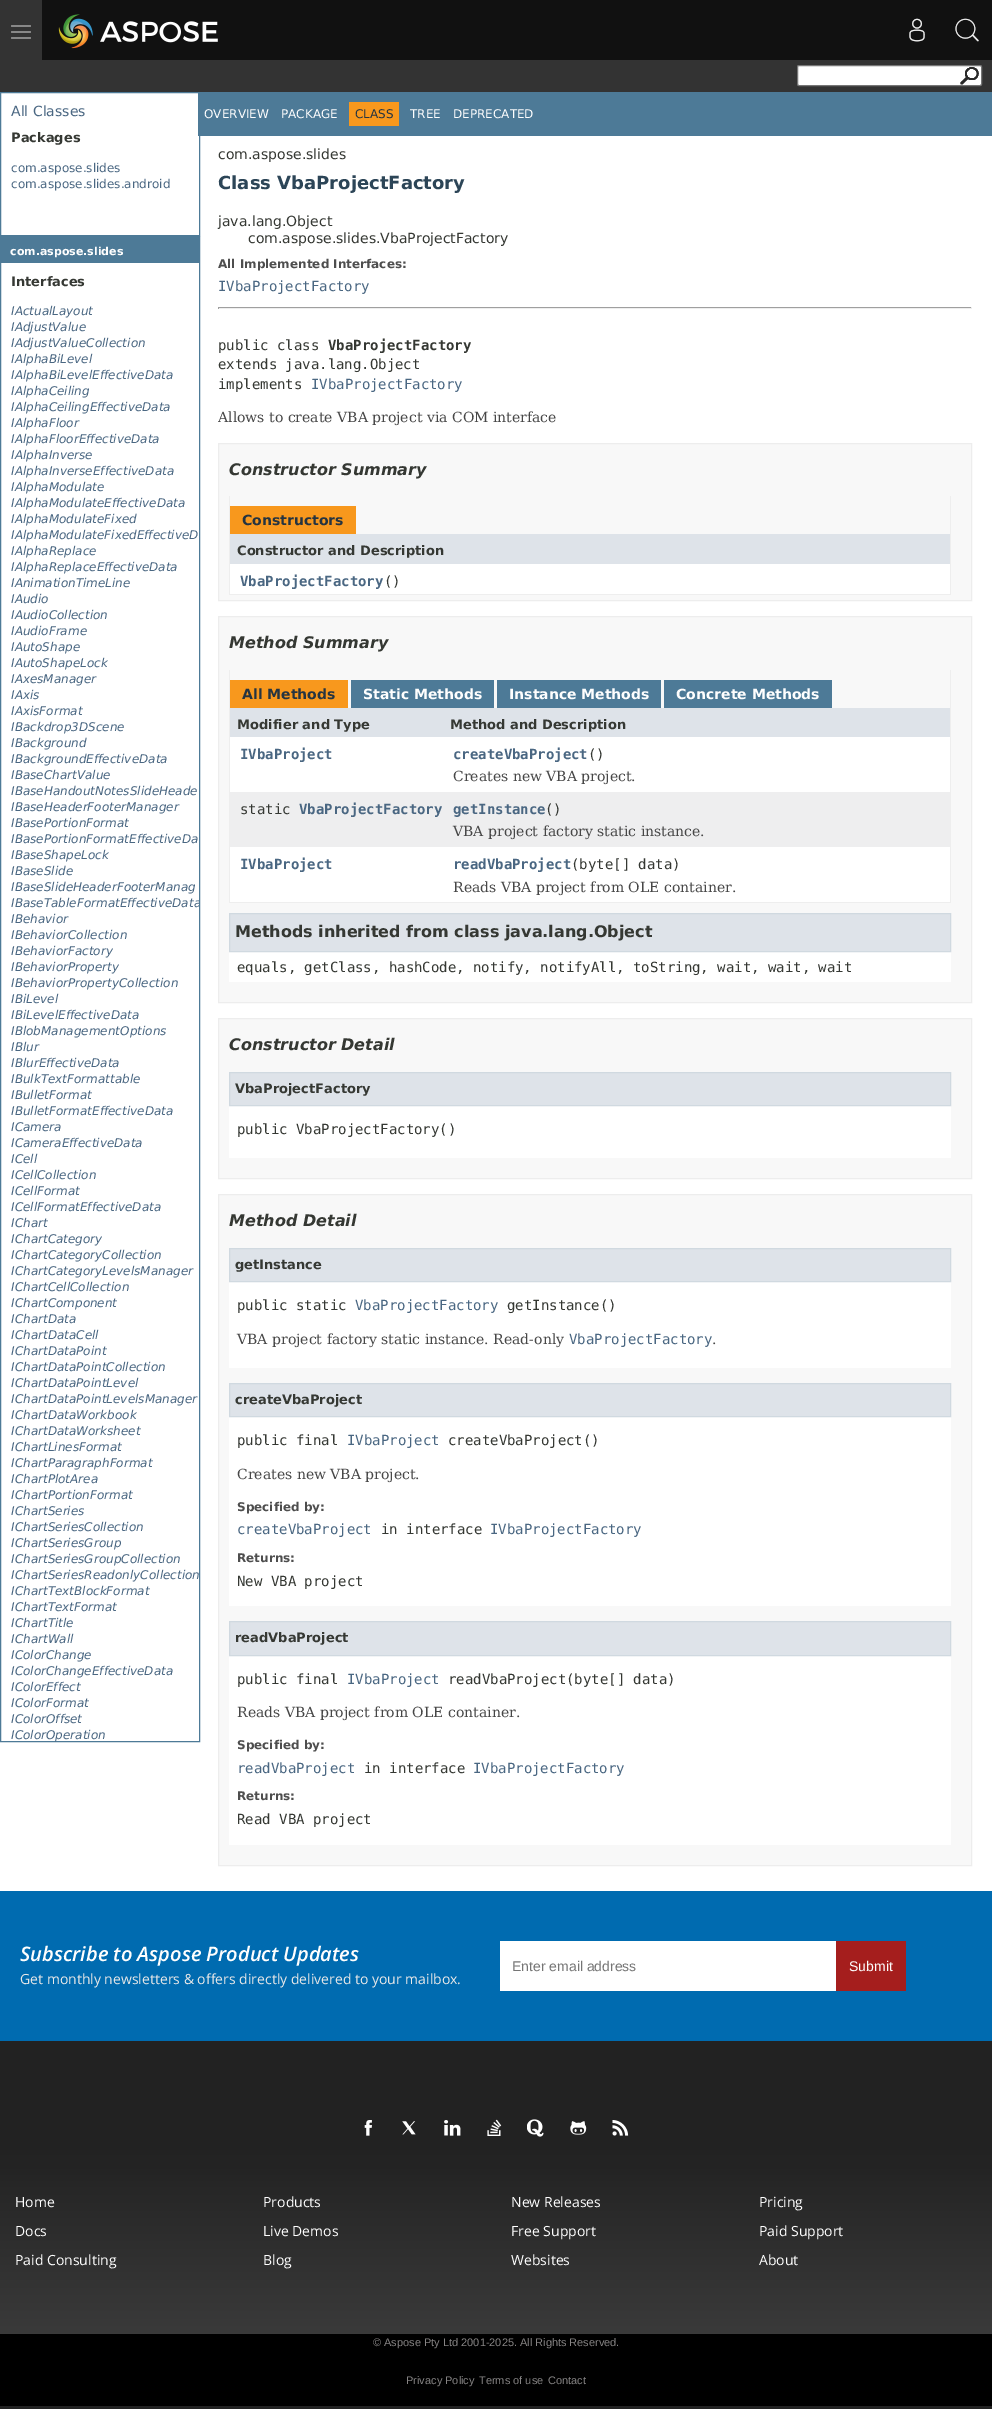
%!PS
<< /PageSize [992 2426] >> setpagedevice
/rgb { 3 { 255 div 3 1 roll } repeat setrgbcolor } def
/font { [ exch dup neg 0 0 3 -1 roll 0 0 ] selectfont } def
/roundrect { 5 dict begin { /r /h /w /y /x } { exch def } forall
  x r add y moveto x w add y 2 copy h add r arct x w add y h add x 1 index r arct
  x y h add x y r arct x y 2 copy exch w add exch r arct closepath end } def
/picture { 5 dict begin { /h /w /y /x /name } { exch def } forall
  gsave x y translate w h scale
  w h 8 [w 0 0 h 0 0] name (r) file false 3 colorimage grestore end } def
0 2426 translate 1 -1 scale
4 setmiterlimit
255 255 255 rgb
0 0 992 2426 rectfill
17 17 17 rgb
42 0 950 60 rectfill
51 51 51 rgb
0 0 42 60 rectfill
136 136 136 rgb
11 25 20 2 1 roundrect fill
11 31 20 2 1 roundrect fill
11 37 20 2 1 roundrect fill
(img/1.rgb) 58 14 160 35 picture
(img/2.rgb) 909 18 16 24 picture
(img/3.rgb) 955 18 24 24 picture
51 51 51 rgb
0 60 992 32 rectfill
255 255 255 rgb
797.5 65.5 184 20 1.5 roundrect gsave fill grestore
118 118 118 rgb
stroke
(img/4.rgb) 960 67 19 18 picture
77 122 151 rgb
0.5 92.5 199 143 rectstroke
0.5 236.5 199 1505 rectstroke
[
  [1 237 198 26 77 122 151]
  [198 92 794 44 77 122 151]
  [349 102 50 24 248 152 29]
  [218 307 754 1 159 159 159]
  [971 307 1 2 238 238 238]
  [218 308 754 1 238 238 238]
  [218 307 1 2 159 159 159]
] { aload pop rgb rectfill } forall
248 248 248 rgb
218.5 443.5 moveto 971.5 443.5 lineto 971.5 600.5 lineto 218.5 600.5 lineto closepath gsave fill grestore
237 237 237 rgb
stroke
[
  [950 496 1 99 238 238 238]
  [229 594 722 1 238 238 238]
  [229 496 1 99 238 238 238]
  [230 506 126 28 248 152 29]
  [230 534 720 30 222 227 233]
  [230 564 720 30 255 255 255]
] { aload pop rgb rectfill } forall
248 248 248 rgb
218.5 616.5 moveto 971.5 616.5 lineto 971.5 1002.5 lineto 218.5 1002.5 lineto closepath gsave fill grestore
237 237 237 rgb
stroke
[
  [950 670 1 233 238 238 238]
  [229 902 722 1 238 238 238]
  [229 670 1 233 238 238 238]
  [230 680 118 28 248 152 29]
  [351 680 143 28 77 122 151]
  [497 680 164 28 77 122 151]
  [664 680 168 28 77 122 151]
  [230 708 720 29 222 227 233]
  [230 737 720 55 255 255 255]
  [230 792 720 55 238 238 239]
  [230 847 720 55 255 255 255]
  [229 952 722 30 255 255 255]
] { aload pop rgb rectfill } forall
222 227 233 rgb
229.5 913.5 moveto 950.5 913.5 lineto 950.5 951.5 lineto 229.5 951.5 lineto closepath gsave fill grestore
208 217 224 rgb
stroke
248 248 248 rgb
218.5 1018.5 moveto 971.5 1018.5 lineto 971.5 1178.5 lineto 218.5 1178.5 lineto closepath gsave fill grestore
237 237 237 rgb
stroke
255 255 255 rgb
229 1106 722 52 rectfill
222 227 233 rgb
229.5 1072.5 moveto 950.5 1072.5 lineto 950.5 1105.5 lineto 229.5 1105.5 lineto closepath gsave fill grestore
208 217 224 rgb
stroke
248 248 248 rgb
218.5 1194.5 moveto 971.5 1194.5 lineto 971.5 1865.5 lineto 218.5 1865.5 lineto closepath gsave fill grestore
237 237 237 rgb
stroke
255 255 255 rgb
229 1282 722 86 rectfill
222 227 233 rgb
229.5 1248.5 moveto 950.5 1248.5 lineto 950.5 1281.5 lineto 229.5 1281.5 lineto closepath gsave fill grestore
208 217 224 rgb
stroke
255 255 255 rgb
229 1417 722 189 rectfill
222 227 233 rgb
229.5 1383.5 moveto 950.5 1383.5 lineto 950.5 1416.5 lineto 229.5 1416.5 lineto closepath gsave fill grestore
208 217 224 rgb
stroke
255 255 255 rgb
229 1656 722 189 rectfill
222 227 233 rgb
229.5 1621.5 moveto 950.5 1621.5 lineto 950.5 1655.5 lineto 229.5 1655.5 lineto closepath gsave fill grestore
208 217 224 rgb
stroke
[
  [0 1891 992 150 0 107 176]
  [500 1941 336 50 255 255 255]
  [836 1941 70 50 165 30 29]
] { aload pop rgb rectfill } forall
gsave 0 2041 moveto 992 2041 lineto 992 2334 lineto 0 2334 lineto closepath clip newpath
<< /ShadingType 2 /ColorSpace /DeviceRGB /Coords [496 2041 496 2409] /Extend [true true] /Function << /FunctionType 3 /Domain [0 1] /Functions [<< /FunctionType 2 /Domain [0 1] /C0 [0.133 0.133 0.133] /C1 [0.133 0.133 0.133] /N 1 >> << /FunctionType 2 /Domain [0 1] /C0 [0.133 0.133 0.133] /C1 [0.267 0.267 0.267] /N 1 >>] /Bounds [0.3] /Encode [0 1 0 1] >> >> shfill grestore
(img/5.rgb) 364 2120 8 16 picture
(img/6.rgb) 402 2121 14 14 picture
(img/7.rgb) 444 2120 17 16 picture
(img/8.rgb) 487 2119 15 17 picture
(img/9.rgb) 527 2119 17 18 picture
(img/10.rgb) 570 2121 17 14 picture
(img/11.rgb) 612 2120 17 16 picture
0 0 0 rgb
0 2334 992 72 rectfill
34 34 34 rgb
0 2406 992 3 rectfill
/DejaVuSans-Regular 14 font
74 103 130 rgb
11 116 moveto (All Classes) show
/DejaVuSans-Bold 13 font
53 56 51 rgb
11 142 moveto (Packages) show
/DejaVuSans-Regular 12 font
74 103 130 rgb
11 172 moveto (com.aspose.slides) show
11 188 moveto (com.aspose.slides.android) show
/DejaVuSans-Bold 11 font
254 254 254 rgb
10 255 moveto (com.aspose.slides) show
/DejaVuSans-Bold 13 font
53 56 51 rgb
11 286 moveto (Interfaces) show
/DejaVuSans-Italic 12 font
74 103 130 rgb
[
  [(IActualLayout) 11 315]
  [(IAdjustValue) 11 331]
  [(IAdjustValueCollection) 11 347]
  [(IAlphaBiLevel) 11 363]
  [(IAlphaBiLevelEffectiveData) 11 379]
  [(IAlphaCeiling) 11 395]
  [(IAlphaCeilingEffectiveData) 11 411]
  [(IAlphaFloor) 11 427]
  [(IAlphaFloorEffectiveData) 11 443]
  [(IAlphaInverse) 11 459]
  [(IAlphaInverseEffectiveData) 11 475]
  [(IAlphaModulate) 11 491]
  [(IAlphaModulateEffectiveData) 11 507]
  [(IAlphaModulateFixed) 11 523]
  [(IAlphaModulateFixedEffectiveD) 11 539]
  [(IAlphaReplace) 11 555]
  [(IAlphaReplaceEffectiveData) 11 571]
  [(IAnimationTimeLine) 11 587]
  [(IAudio) 11 603]
  [(IAudioCollection) 11 619]
  [(IAudioFrame) 11 635]
  [(IAutoShape) 11 651]
  [(IAutoShapeLock) 11 667]
  [(IAxesManager) 11 683]
  [(IAxis) 11 699]
  [(IAxisFormat) 11 715]
  [(IBackdrop3DScene) 11 731]
  [(IBackground) 11 747]
  [(IBackgroundEffectiveData) 11 763]
  [(IBaseChartValue) 11 779]
  [(IBaseHandoutNotesSlideHeade) 11 795]
  [(IBaseHeaderFooterManager) 11 811]
  [(IBasePortionFormat) 11 827]
  [(IBasePortionFormatEffectiveDa) 11 843]
  [(IBaseShapeLock) 11 859]
  [(IBaseSlide) 11 875]
  [(IBaseSlideHeaderFooterManag) 11 891]
] { aload pop moveto show } forall
gsave
1 237 198 1504 rectclip
11 907 moveto (IBaseTableFormatEffectiveData) show
grestore
[
  [(IBehavior) 11 923]
  [(IBehaviorCollection) 11 939]
  [(IBehaviorFactory) 11 955]
  [(IBehaviorProperty) 11 971]
  [(IBehaviorPropertyCollection) 11 987]
  [(IBiLevel) 11 1003]
  [(IBiLevelEffectiveData) 11 1019]
  [(IBlobManagementOptions) 11 1035]
  [(IBlur) 11 1051]
  [(IBlurEffectiveData) 11 1067]
  [(IBulkTextFormattable) 11 1083]
  [(IBulletFormat) 11 1099]
  [(IBulletFormatEffectiveData) 11 1115]
  [(ICamera) 11 1131]
  [(ICameraEffectiveData) 11 1147]
  [(ICell) 11 1163]
  [(ICellCollection) 11 1179]
  [(ICellFormat) 11 1195]
  [(ICellFormatEffectiveData) 11 1211]
  [(IChart) 11 1227]
  [(IChartCategory) 11 1243]
  [(IChartCategoryCollection) 11 1259]
  [(IChartCategoryLevelsManager) 11 1275]
  [(IChartCellCollection) 11 1291]
  [(IChartComponent) 11 1307]
  [(IChartData) 11 1323]
  [(IChartDataCell) 11 1339]
  [(IChartDataPoint) 11 1355]
  [(IChartDataPointCollection) 11 1371]
  [(IChartDataPointLevel) 11 1387]
  [(IChartDataPointLevelsManager) 11 1403]
  [(IChartDataWorkbook) 11 1419]
  [(IChartDataWorksheet) 11 1435]
  [(IChartLinesFormat) 11 1451]
  [(IChartParagraphFormat) 11 1467]
  [(IChartPlotArea) 11 1483]
  [(IChartPortionFormat) 11 1499]
  [(IChartSeries) 11 1515]
  [(IChartSeriesCollection) 11 1531]
  [(IChartSeriesGroup) 11 1547]
  [(IChartSeriesGroupCollection) 11 1563]
  [(IChartSeriesReadonlyCollection) 11 1579]
  [(IChartTextBlockFormat) 11 1595]
  [(IChartTextFormat) 11 1611]
  [(IChartTitle) 11 1627]
  [(IChartWall) 11 1643]
  [(IColorChange) 11 1659]
  [(IColorChangeEffectiveData) 11 1675]
  [(IColorEffect) 11 1691]
  [(IColorFormat) 11 1707]
  [(IColorOffset) 11 1723]
  [(IColorOperation) 11 1739]
] { aload pop moveto show } forall
/DejaVuSans-Regular 12 font
254 254 254 rgb
204 118 moveto (OVERVIEW) show
281 118 moveto (PACKAGE) show
37 52 65 rgb
355 118 moveto (CLASS) show
254 254 254 rgb
410 118 moveto (TREE) show
453 118 moveto (DEPRECATED) show
/DejaVuSans-Regular 14 font
53 56 51 rgb
218 159 moveto (com.aspose.slides) show
/DejaVuSans-Bold 18 font
44 69 87 rgb
218 189 moveto (Class VbaProjectFactory) show
/DejaVuSans-Regular 14 font
53 56 51 rgb
218 226 moveto (java.lang.Object) show
248 243 moveto (com.aspose.slides.VbaProjectFactory) show
/DejaVuSans-Bold 12 font
78 78 78 rgb
218 268 moveto (All Implemented Interfaces:) show
/DejaVuSansMono-Regular 14 font
74 103 130 rgb
218 291 moveto (IVbaProjectFactory) show
53 56 51 rgb
218 350 moveto (public class) show
/DejaVuSansMono-Bold 14 font
328 350 moveto (VbaProjectFactory) show
/DejaVuSansMono-Regular 14 font
218 369 moveto (extends java.lang.Object) show
218 389 moveto (implements) show
74 103 130 rgb
311 389 moveto (IVbaProjectFactory) show
/DejaVuSerif-Regular 14 font
71 71 71 rgb
218 422 moveto (Allows to create VBA project via COM interface) show
/DejaVuSans-BoldItalic 16 font
53 56 51 rgb
229 475 moveto (Constructor Summary) show
/DejaVuSans-Bold 14 font
37 52 65 rgb
242 525 moveto (Constructors) show
/DejaVuSans-Bold 13 font
53 56 51 rgb
237 555 moveto (Constructor and Description) show
/DejaVuSansMono-Bold 14 font
74 103 130 rgb
240 586 moveto (VbaProjectFactory) show
/DejaVuSansMono-Regular 14 font
53 56 51 rgb
384 586 moveto (\(\)) show
/DejaVuSans-BoldItalic 16 font
229 648 moveto (Method Summary) show
/DejaVuSans-Bold 14 font
37 52 65 rgb
242 699 moveto (All Methods) show
254 254 254 rgb
[
  [(Static Methods) 363 699]
  [(Instance Methods) 509 699]
  [(Concrete Methods) 676 699]
] { aload pop moveto show } forall
/DejaVuSans-Bold 13 font
53 56 51 rgb
237 729 moveto (Modifier and Type) show
450 729 moveto (Method and Description) show
/DejaVuSansMono-Bold 14 font
74 103 130 rgb
240 759 moveto (IVbaProject) show
453 759 moveto (createVbaProject) show
/DejaVuSansMono-Regular 14 font
53 56 51 rgb
588 759 moveto (\(\)) show
/DejaVuSerif-Regular 14 font
71 71 71 rgb
453 781 moveto (Creates new VBA project.) show
/DejaVuSansMono-Regular 14 font
53 56 51 rgb
240 814 moveto (static) show
/DejaVuSansMono-Bold 14 font
74 103 130 rgb
299 814 moveto (VbaProjectFactory) show
453 814 moveto (getInstance) show
/DejaVuSansMono-Regular 14 font
53 56 51 rgb
545 814 moveto (\(\)) show
/DejaVuSerif-Regular 14 font
71 71 71 rgb
453 836 moveto (VBA project factory static instance.) show
/DejaVuSansMono-Bold 14 font
74 103 130 rgb
240 869 moveto (IVbaProject) show
453 869 moveto (readVbaProject) show
/DejaVuSansMono-Regular 14 font
53 56 51 rgb
571 869 moveto (\(byte[] data\)) show
/DejaVuSerif-Regular 14 font
71 71 71 rgb
453 892 moveto (Reads VBA project from OLE container.) show
/DejaVuSans-Bold 16 font
53 56 51 rgb
235 937 moveto (Methods inherited from class java.lang.Object) show
/DejaVuSansMono-Regular 14 font
237 972 moveto (equals, getClass, hashCode, notify, notifyAll, toString, wait, wait, wait) show
/DejaVuSans-BoldItalic 16 font
229 1050 moveto (Constructor Detail) show
/DejaVuSans-Bold 13 font
235 1093 moveto (VbaProjectFactory) show
/DejaVuSansMono-Regular 14 font
237 1134 moveto (public VbaProjectFactory\(\)) show
/DejaVuSans-BoldItalic 16 font
229 1226 moveto (Method Detail) show
/DejaVuSans-Bold 13 font
235 1269 moveto (getInstance) show
/DejaVuSansMono-Regular 14 font
237 1310 moveto (public static) show
74 103 130 rgb
355 1310 moveto (VbaProjectFactory) show
53 56 51 rgb
507 1310 moveto (getInstance\(\)) show
/DejaVuSerif-Regular 14 font
71 71 71 rgb
237 1344 moveto (VBA project factory static instance. Read-only) show
/DejaVuSansMono-Regular 14 font
74 103 130 rgb
569 1344 moveto (VbaProjectFactory) show
/DejaVuSerif-Regular 14 font
71 71 71 rgb
712 1344 moveto (.) show
/DejaVuSans-Bold 13 font
53 56 51 rgb
235 1404 moveto (createVbaProject) show
/DejaVuSansMono-Regular 14 font
237 1445 moveto (public final) show
74 103 130 rgb
347 1445 moveto (IVbaProject) show
53 56 51 rgb
448 1445 moveto (createVbaProject\(\)) show
/DejaVuSerif-Regular 14 font
71 71 71 rgb
237 1479 moveto (Creates new VBA project.) show
/DejaVuSans-Bold 12 font
78 78 78 rgb
237 1511 moveto (Specified by:) show
/DejaVuSansMono-Regular 14 font
74 103 130 rgb
237 1534 moveto (createVbaProject) show
53 56 51 rgb
381 1534 moveto (in interface) show
74 103 130 rgb
490 1534 moveto (IVbaProjectFactory) show
/DejaVuSans-Bold 12 font
78 78 78 rgb
237 1562 moveto (Returns:) show
/DejaVuSansMono-Regular 14 font
53 56 51 rgb
237 1586 moveto (New VBA project) show
/DejaVuSans-Bold 13 font
235 1642 moveto (readVbaProject) show
/DejaVuSansMono-Regular 14 font
237 1684 moveto (public final) show
74 103 130 rgb
347 1684 moveto (IVbaProject) show
53 56 51 rgb
448 1684 moveto (readVbaProject\(byte[] data\)) show
/DejaVuSerif-Regular 14 font
71 71 71 rgb
237 1717 moveto (Reads VBA project from OLE container.) show
/DejaVuSans-Bold 12 font
78 78 78 rgb
237 1749 moveto (Specified by:) show
/DejaVuSansMono-Regular 14 font
74 103 130 rgb
237 1773 moveto (readVbaProject) show
53 56 51 rgb
364 1773 moveto (in interface) show
74 103 130 rgb
473 1773 moveto (IVbaProjectFactory) show
/DejaVuSans-Bold 12 font
78 78 78 rgb
237 1800 moveto (Returns:) show
/DejaVuSansMono-Regular 14 font
53 56 51 rgb
237 1824 moveto (Read VBA project) show
/OpenSans-SemiBoldItalic 20 font
254 254 254 rgb
20 1961 moveto (Subscribe to Aspose Product Updates) show
/OpenSans-Regular 14 font
232 232 232 rgb
20 1984 moveto (Get monthly newsletters & offers directly delivered to your mailbox.) show
/LiberationSans-Regular 14 font
117 117 117 rgb
512 1971 moveto (Enter email address) show
254 254 254 rgb
849 1971 moveto (Submit) show
/OpenSans-Regular 14 font
[
  [(Home) 15 2207]
  [(Products) 263 2207]
  [(New Releases) 511 2207]
  [(Pricing) 759 2207]
  [(Docs) 15 2236]
  [(Live Demos) 263 2236]
  [(Free Support) 511 2236]
  [(Paid Support) 759 2236]
  [(Paid Consulting) 15 2265]
  [(Blog) 263 2265]
  [(Websites) 511 2265]
  [(About) 759 2265]
] { aload pop moveto show } forall
/LiberationSans-Regular 11 font
134 132 132 rgb
[
  [(© Aspose Pty Ltd 2001-2025. All Rights Reserved.) 373 2346]
  [(Privacy Policy) 406 2384]
  [(Terms of use) 479 2384]
  [(Contact) 548 2384]
] { aload pop moveto show } forall
showpage
